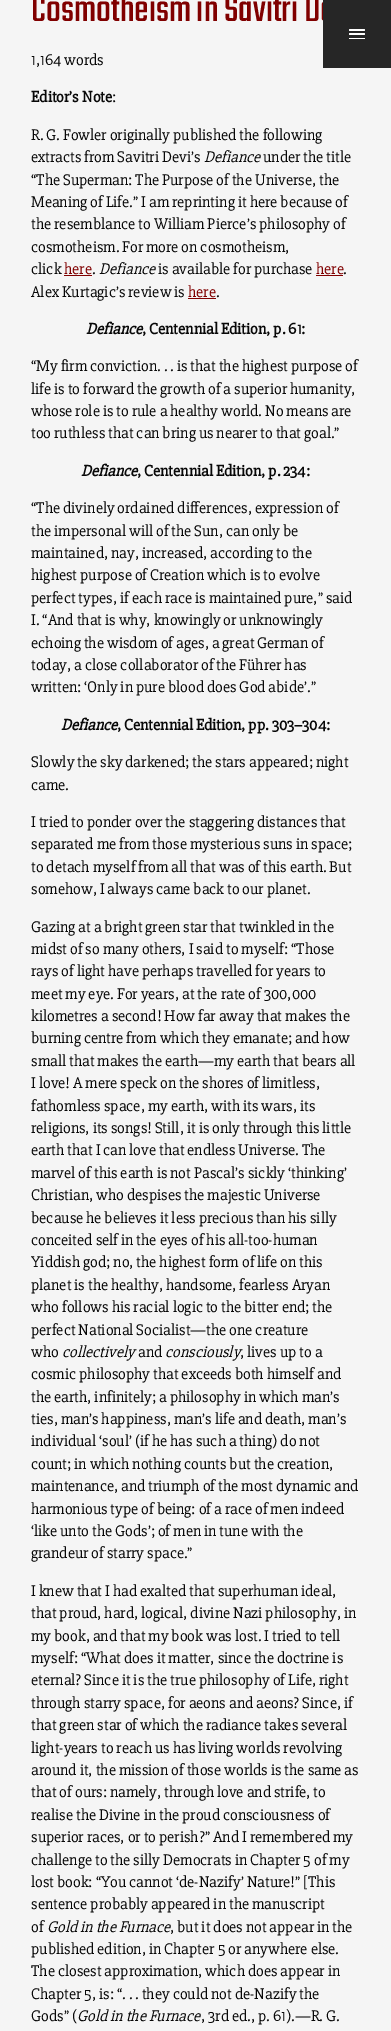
%!PS
<< /PageSize [391 2031] >> setpagedevice
/rgb { 3 { 255 div 3 1 roll } repeat setrgbcolor } def
/font { [ exch dup neg 0 0 3 -1 roll 0 0 ] selectfont } def
/roundrect { 5 dict begin { /r /h /w /y /x } { exch def } forall
  x r add y moveto x w add y 2 copy h add r arct x w add y h add x 1 index r arct
  x y h add x y r arct x y 2 copy exch w add exch r arct closepath end } def
0 2031 translate 1 -1 scale
4 setmiterlimit
245 245 245 rgb
0 0 391 2031 rectfill
[
  [64 275 28 1 128 0 0]
  [316 275 27 1 128 0 0]
  [188 298 28 1 128 0 0]
] { aload pop rgb rectfill } forall
/Teko-Regular 40 font
31 21 moveto (Cosmotheism in Savitri De) show
/Slabo27px-Regular 16 font
8 8 8 rgb
31 65 moveto (1,164 words) show
/Slabo27px-Bold 16 font
31 102 moveto (Editor’s Note) show
/Slabo27px-Regular 16 font
[
  [(:) 112 102]
  [(R. G. Fowler originally published the following) 31 140]
  [(extracts from Savitri Devi’s) 31 162]
] { aload pop moveto show } forall
/Slabo27px-Italic 16 font
204 162 moveto (Defiance) show
/Slabo27px-Regular 16 font
[
  [(under the title) 263 162]
  [(“The Superman: The Purpose of the Universe, the) 31 185]
  [(Meaning of Life.” I am reprinting it here because of) 31 207]
  [(the resemblance to William Pierce’s philosophy of) 31 229]
  [(cosmotheism. For more on cosmotheism,) 31 252]
  [(click) 31 274]
] { aload pop moveto show } forall
128 0 0 rgb
64 274 moveto (here) show
8 8 8 rgb
92 274 moveto (.) show
/Slabo27px-Italic 16 font
99 274 moveto (Defiance) show
/Slabo27px-Regular 16 font
158 274 moveto (is available for purchase) show
128 0 0 rgb
316 274 moveto (here) show
8 8 8 rgb
343 274 moveto (.) show
31 297 moveto (Alex Kurtagic’s review is) show
128 0 0 rgb
188 297 moveto (here) show
8 8 8 rgb
216 297 moveto (.) show
/Slabo27px-BoldItalic 16 font
86 334 moveto (Defiance) show
/Slabo27px-Bold 16 font
142 334 moveto (, Centennial Edition, p. 61:) show
/Slabo27px-Regular 16 font
[
  [(“My firm conviction. . . is that the highest purpose of) 31 371]
  [(life is to forward the growth of a superior humanity,) 31 394]
  [(whose role is to rule a healthy world. No means are) 31 416]
  [(too ruthless that can bring us nearer to that goal.”) 31 438]
] { aload pop moveto show } forall
/Slabo27px-BoldItalic 16 font
81 476 moveto (Defiance) show
/Slabo27px-Bold 16 font
137 476 moveto (, Centennial Edition, p. 234:) show
/Slabo27px-Regular 16 font
[
  [(“The divinely ordained differences, expression of) 31 513]
  [(the impersonal will of the Sun, can only be) 31 536]
  [(maintained, nay, increased, according to the) 31 558]
  [(highest purpose of Creation which is to evolve) 31 580]
  [(perfect types, if each race is maintained pure,” said) 31 603]
  [(I. “And that is why, knowingly or unknowingly) 31 625]
  [(echoing the wisdom of ages, a great German of) 31 648]
  [(today, a close collaborator of the Führer has) 31 670]
  [(written: ‘Only in pure blood does God abide’.”) 31 692]
] { aload pop moveto show } forall
/Slabo27px-BoldItalic 16 font
61 730 moveto (Defiance) show
/Slabo27px-Bold 16 font
117 730 moveto (, Centennial Edition, pp. 303–304:) show
/Slabo27px-Regular 16 font
[
  [(Slowly the sky darkened; the stars appeared; night) 31 767]
  [(came.) 31 790]
  [(I tried to ponder over the staggering distances that) 31 827]
  [(separated me from those mysterious suns in space;) 31 849]
  [(to detach myself from all that was of this earth. But) 31 872]
  [(somehow, I always came back to our planet.) 31 894]
  [(Gazing at a bright green star that twinkled in the) 31 932]
  [(midst of so many others, I said to myself: “Those) 31 954]
  [(rays of light have perhaps travelled for years to) 31 976]
  [(meet my eye. For years, at the rate of 300,000) 31 999]
  [(kilometres a second! How far away that makes the) 31 1021]
  [(burning centre from which they emanate; and how) 31 1043]
  [(small that makes the earth—my earth that bears all) 31 1066]
  [(I love! A mere speck on the shores of limitless,) 31 1088]
  [(fathomless space, my earth, with its wars, its) 31 1111]
  [(religions, its songs! Still, it is only through this little) 31 1133]
  [(earth that I can love that endless Universe. The) 31 1155]
  [(marvel of this earth is not Pascal’s sickly ‘thinking’) 31 1178]
  [(Christian, who despises the majestic Universe) 31 1200]
  [(because he believes it less precious than his silly) 31 1223]
  [(conceited self in the eyes of his all-too-human) 31 1245]
  [(Yiddish god; no, the highest form of life on this) 31 1267]
  [(planet is the healthy, handsome, fearless Aryan) 31 1290]
  [(who follows his racial logic to the bitter end; the) 31 1312]
  [(perfect National Socialist—the one creature) 31 1335]
  [(who) 31 1357]
] { aload pop moveto show } forall
/Slabo27px-Italic 16 font
62 1357 moveto (collectively) show
/Slabo27px-Regular 16 font
138 1357 moveto (and) show
/Slabo27px-Italic 16 font
165 1357 moveto (consciously) show
/Slabo27px-Regular 16 font
[
  [(, lives up to a) 240 1357]
  [(cosmic philosophy that exceeds both himself and) 31 1379]
  [(the earth, infinitely; a philosophy in which man’s) 31 1402]
  [(ties, man’s happiness, man’s life and death, man’s) 31 1424]
  [(individual ‘soul’ \(if he has such a thing\) do not) 31 1446]
  [(count; in which nothing counts but the creation,) 31 1469]
  [(maintenance, and triumph of the most dynamic and) 31 1491]
  [(harmonious type of being: of a race of men indeed) 31 1514]
  [(‘like unto the Gods’; of men in tune with the) 31 1536]
  [(grandeur of starry space.”) 31 1558]
  [(I knew that I had exalted that superhuman ideal,) 31 1596]
  [(that proud, hard, logical, divine Nazi philosophy, in) 31 1618]
  [(my book, and that my book was lost. I tried to tell) 31 1641]
  [(myself: “What does it matter, since the doctrine is) 31 1663]
  [(eternal? Since it is the true philosophy of Life, right) 31 1685]
  [(through starry space, for aeons and aeons? Since, if) 31 1708]
  [(that green star of which the radiance takes several) 31 1730]
  [(light-years to reach us has living worlds revolving) 31 1753]
  [(around it, the mission of those worlds is the same as) 31 1775]
  [(that of ours: namely, through love and strife, to) 31 1797]
  [(realise the Divine in the proud consciousness of) 31 1820]
  [(superior races, or to perish?” And I remembered my) 31 1842]
  [(challenge to the silly Democrats in Chapter 5 of my) 31 1865]
  [(lost book: “You cannot ‘de-Nazify’ Nature!” [This) 31 1887]
  [(sentence probably appeared in the manuscript) 31 1909]
  [(of) 31 1932]
] { aload pop moveto show } forall
/Slabo27px-Italic 16 font
47 1932 moveto (Gold in the Furnace) show
/Slabo27px-Regular 16 font
[
  [(, but it does not appear in the) 170 1932]
  [(published edition, in Chapter 5 or anywhere else.) 31 1954]
  [(The closest approximation, which does appear in) 31 1976]
  [(Chapter 5, is: “. . . they could not de-Nazify the) 31 1999]
  [(Gods” \() 31 2021]
] { aload pop moveto show } forall
/Slabo27px-Italic 16 font
77 2021 moveto (Gold in the Furnace) show
/Slabo27px-Regular 16 font
201 2021 moveto (, 3rd ed., p. 61\).—R. G.) show
38 38 38 rgb
323 0 68 68 rectfill
255 255 255 rgb
349 29 16 2 1 roundrect fill
349 33 16 2 1 roundrect fill
349 38 16 1 0.5 roundrect fill
showpage
